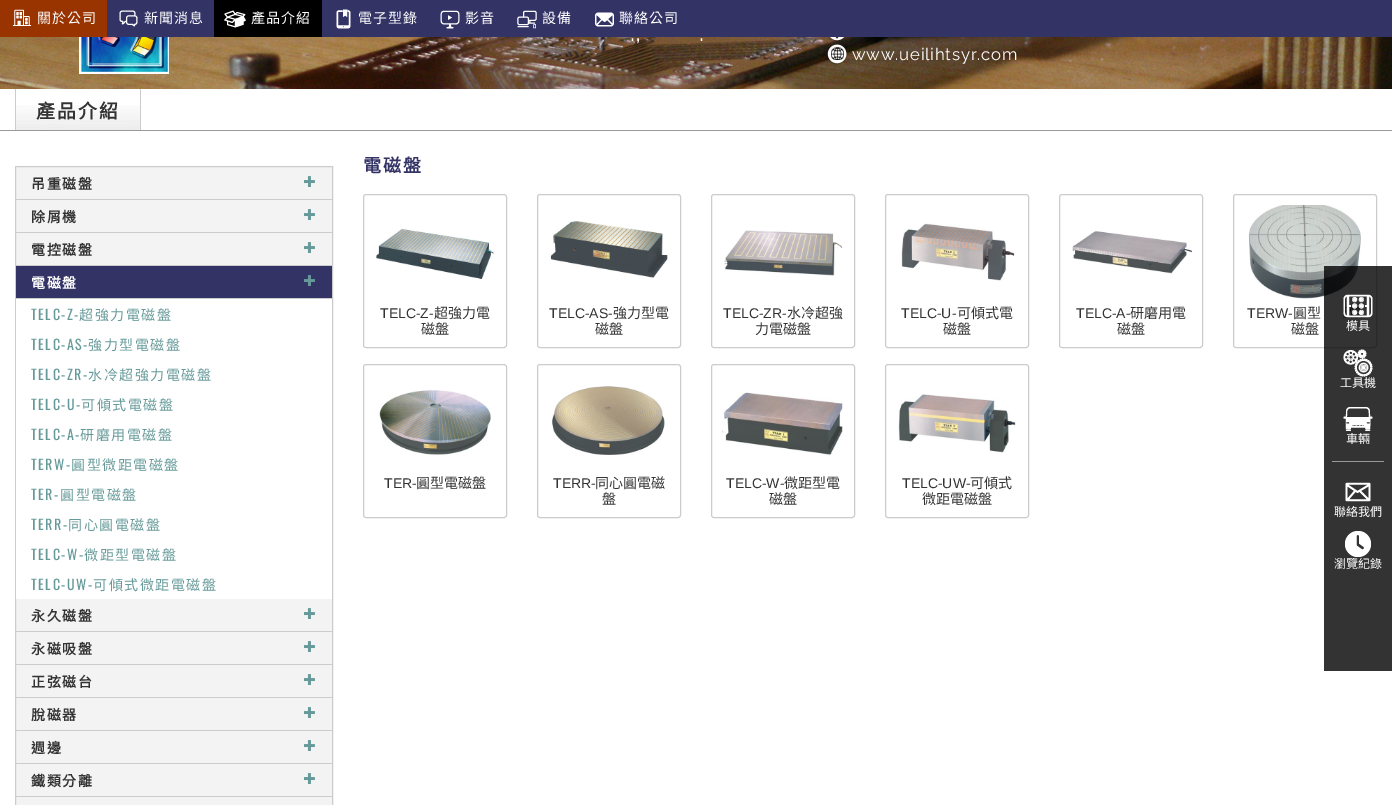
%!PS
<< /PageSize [1392 805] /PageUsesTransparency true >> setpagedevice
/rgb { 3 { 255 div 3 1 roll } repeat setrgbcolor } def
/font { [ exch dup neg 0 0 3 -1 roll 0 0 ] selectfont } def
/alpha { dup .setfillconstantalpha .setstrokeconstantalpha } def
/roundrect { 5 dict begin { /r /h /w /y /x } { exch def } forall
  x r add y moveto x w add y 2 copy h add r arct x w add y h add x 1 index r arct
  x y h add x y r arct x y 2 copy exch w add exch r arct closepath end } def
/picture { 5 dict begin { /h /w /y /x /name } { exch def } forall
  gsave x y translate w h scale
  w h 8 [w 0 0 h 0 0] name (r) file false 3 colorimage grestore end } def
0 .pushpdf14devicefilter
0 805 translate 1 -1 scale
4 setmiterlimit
255 255 255 rgb
0 0 1392 805 rectfill
51 51 102 rgb
107 0 1285 37 rectfill
153 51 0 rgb
0 0 107 37 rectfill
(img/1.rgb) 12 9 20 17 picture
(img/2.rgb) 119 10 19 17 picture
0 0 0 rgb
214 0 108 37 rectfill
(img/3.rgb) 224 10 22 18 picture
(img/4.rgb) 336 9 15 20 picture
(img/5.rgb) 440 10 20 19 picture
(img/6.rgb) 517 10 20 19 picture
(img/7.rgb) 595 12 19 15 picture
(img/8.rgb) 0 37 1392 52 picture
(img/9.rgb) 79 37 90 37 picture
(img/10.rgb) 827 37 19 5 picture
(img/11.rgb) 826 44 21 22 picture
153 153 153 rgb
0 130 1392 1 rectfill
(img/12.rgb) 16 105 124 25 picture
204 204 204 rgb
140 89 1 41 rectfill
15 89 1 41 rectfill
243 243 243 rgb
15.5 166.5 moveto 332.5 166.5 lineto 332.5 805.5 lineto 15.5 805.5 lineto closepath gsave fill grestore
204 204 204 rgb
stroke
16 199 316 1 rectfill
(img/13.rgb) 304 176 11 11 picture
16 232 316 1 rectfill
(img/13.rgb) 304 209 11 11 picture
16 265 316 1 rectfill
(img/13.rgb) 304 242 11 11 picture
51 51 102 rgb
16 266 316 32 rectfill
204 204 204 rgb
16 298 316 1 rectfill
(img/14.rgb) 304 275 11 11 picture
255 255 255 rgb
16 299 316 300 rectfill
204 204 204 rgb
16 631 316 1 rectfill
(img/13.rgb) 304 608 11 11 picture
16 664 316 1 rectfill
(img/13.rgb) 304 641 11 11 picture
16 697 316 1 rectfill
(img/13.rgb) 304 674 11 11 picture
16 730 316 1 rectfill
(img/13.rgb) 304 707 11 11 picture
16 763 316 1 rectfill
(img/13.rgb) 304 740 11 11 picture
16 796 316 1 rectfill
(img/13.rgb) 304 773 11 11 picture
363.5 194.5 143 153 2.5 roundrect stroke
(img/15.rgb) 376 228 118 52 picture
537.5 194.5 143 153 2.5 roundrect stroke
(img/16.rgb) 550 221 118 57 picture
711.5 194.5 143 153 2.5 roundrect stroke
(img/17.rgb) 724 230 119 46 picture
885.5 194.5 143 153 2.5 roundrect stroke
(img/18.rgb) 901 223 114 58 picture
1059.5 194.5 143 153 2.5 roundrect stroke
(img/19.rgb) 1072 231 120 43 picture
1233.5 194.5 143 153 2.5 roundrect stroke
(img/20.rgb) 1248 205 113 94 picture
363.5 364.5 143 153 2.5 roundrect stroke
(img/21.rgb) 379 390 112 65 picture
537.5 364.5 143 153 2.5 roundrect stroke
(img/22.rgb) 552 386 113 69 picture
711.5 364.5 143 153 2.5 roundrect stroke
(img/23.rgb) 722 392 121 64 picture
885.5 364.5 143 153 2.5 roundrect stroke
(img/24.rgb) 898 394 118 59 picture
0.8 alpha
0 0 0 rgb
1324 266 68 405 rectfill
1 alpha
(img/25.rgb) 1343 294 30 24 picture
(img/26.rgb) 1343 349 30 28 picture
153 153 153 rgb
1332 461 52 1 rectfill
(img/27.rgb) 1343 407 30 24 picture
(img/28.rgb) 1345 482 26 20 picture
(img/29.rgb) 1345 531 26 26 picture
/NotoSansCJKTC-Regular 14 font
255 255 255 rgb
37 23 moveto 1 0 (關於公司) ashow
144 23 moveto 1 0 (新聞消息) ashow
251 23 moveto 1 0 (產品介紹) ashow
358 23 moveto 1 0 (電子型錄) ashow
465 23 moveto 1 0 (影音) ashow
542 23 moveto 1 0 (設備) ashow
619 23 moveto 1 0 (聯絡公司) ashow
/Raleway-Regular 27 font
630 41 moveto (.,) show
699 41 moveto (.) show
/Raleway-Regular 16.75 font
852 60 moveto 0.8 0 (www.ueilihtsyr.com) ashow
/NotoSansCJKTC-Bold 19 font
51 51 51 rgb
36 118 moveto 2 0 (產品介紹) ashow
/NotoSansCJKTC-Bold 14 font
31 189 moveto 1.5 0 (吊重磁盤) ashow
31 222 moveto 1.5 0 (除屑機) ashow
31 255 moveto 1.5 0 (電控磁盤) ashow
255 255 255 rgb
31 288 moveto 1.5 0 (電磁盤) ashow
/Oswald-Regular 14 font
102 153 153 rgb
31 320 moveto 1.5 0 (TELC-Z-) ashow
/NotoSansCJKTC-Regular 14 font
79 320 moveto 1.5 0 (超強力電磁盤) ashow
/Oswald-Regular 14 font
31 350 moveto 1.5 0 (TELC-AS-) ashow
/NotoSansCJKTC-Regular 14 font
88 350 moveto 1.5 0 (強力型電磁盤) ashow
/Oswald-Regular 14 font
31 380 moveto 1.5 0 (TELC-ZR-) ashow
/NotoSansCJKTC-Regular 14 font
88 380 moveto 1.5 0 (水冷超強力電磁盤) ashow
/Oswald-Regular 14 font
31 410 moveto 1.5 0 (TELC-U-) ashow
/NotoSansCJKTC-Regular 14 font
81 410 moveto 1.5 0 (可傾式電磁盤) ashow
/Oswald-Regular 14 font
31 440 moveto 1.5 0 (TELC-A-) ashow
/NotoSansCJKTC-Regular 14 font
80 440 moveto 1.5 0 (研磨用電磁盤) ashow
/Oswald-Regular 14 font
31 470 moveto 1.5 0 (TERW-) ashow
/NotoSansCJKTC-Regular 14 font
71 470 moveto 1.5 0 (圓型微距電磁盤) ashow
/Oswald-Regular 14 font
31 500 moveto 1.5 0 (TER-) ashow
/NotoSansCJKTC-Regular 14 font
60 500 moveto 1.5 0 (圓型電磁盤) ashow
/Oswald-Regular 14 font
31 530 moveto 1.5 0 (TERR-) ashow
/NotoSansCJKTC-Regular 14 font
68 530 moveto 1.5 0 (同心圓電磁盤) ashow
/Oswald-Regular 14 font
31 560 moveto 1.5 0 (TELC-W-) ashow
/NotoSansCJKTC-Regular 14 font
84 560 moveto 1.5 0 (微距型電磁盤) ashow
/Oswald-Regular 14 font
31 590 moveto 1.5 0 (TELC-UW-) ashow
/NotoSansCJKTC-Regular 14 font
93 590 moveto 1.5 0 (可傾式微距電磁盤) ashow
/NotoSansCJKTC-Bold 14 font
51 51 51 rgb
31 621 moveto 1.5 0 (永久磁盤) ashow
31 654 moveto 1.5 0 (永磁吸盤) ashow
31 687 moveto 1.5 0 (正弦磁台) ashow
31 720 moveto 1.5 0 (脫磁器) ashow
31 753 moveto 1.5 0 (週邊) ashow
31 786 moveto 1.5 0 (鐵類分離) ashow
/NotoSansCJKTC-Bold 18 font
51 51 102 rgb
363 172 moveto 2 0 (電磁盤) ashow
/LiberationSans-Regular 14 font
51 51 51 rgb
380 318 moveto (TELC-Z-) show
/NotoSansCJKTC-Regular 14 font
434 318 moveto (超強力電) show
421 334 moveto (磁盤) show
/LiberationSans-Regular 14 font
549 318 moveto (TELC-AS-) show
/NotoSansCJKTC-Regular 14 font
613 318 moveto (強力型電) show
595 334 moveto (磁盤) show
/LiberationSans-Regular 14 font
723 318 moveto (TELC-ZR-) show
/NotoSansCJKTC-Regular 14 font
787 318 moveto (水冷超強) show
755 334 moveto (力電磁盤) show
/LiberationSans-Regular 14 font
901 318 moveto (TELC-U-) show
/NotoSansCJKTC-Regular 14 font
957 318 moveto (可傾式電) show
943 334 moveto (磁盤) show
/LiberationSans-Regular 14 font
1076 318 moveto (TELC-A-) show
/NotoSansCJKTC-Regular 14 font
1130 318 moveto (研磨用電) show
1117 334 moveto (磁盤) show
/LiberationSans-Regular 14 font
1247 318 moveto (TERW-) show
/NotoSansCJKTC-Regular 14 font
1293 318 moveto (圓型) show
1291 334 moveto (磁盤) show
/LiberationSans-Regular 14 font
384 488 moveto (TER-) show
/NotoSansCJKTC-Regular 14 font
416 488 moveto (圓型電磁盤) show
/LiberationSans-Regular 14 font
553 488 moveto (TERR-) show
/NotoSansCJKTC-Regular 14 font
595 488 moveto (同心圓電磁) show
602 504 moveto (盤) show
/LiberationSans-Regular 14 font
726 488 moveto (TELC-W-) show
/NotoSansCJKTC-Regular 14 font
784 488 moveto (微距型電) show
769 504 moveto (磁盤) show
/LiberationSans-Regular 14 font
902 488 moveto (TELC-UW-) show
/NotoSansCJKTC-Regular 14 font
970 488 moveto (可傾式) show
922 504 moveto (微距電磁盤) show
/NotoSansCJKTC-Regular 12 font
255 255 255 rgb
[
  [(模具) 1346 330]
  [(工具機) 1340 387]
  [(車輛) 1346 443]
  [(聯絡我們) 1334 516]
  [(瀏覽紀錄) 1334 568]
] { aload pop moveto show } forall
.poppdf14devicefilter showpage
